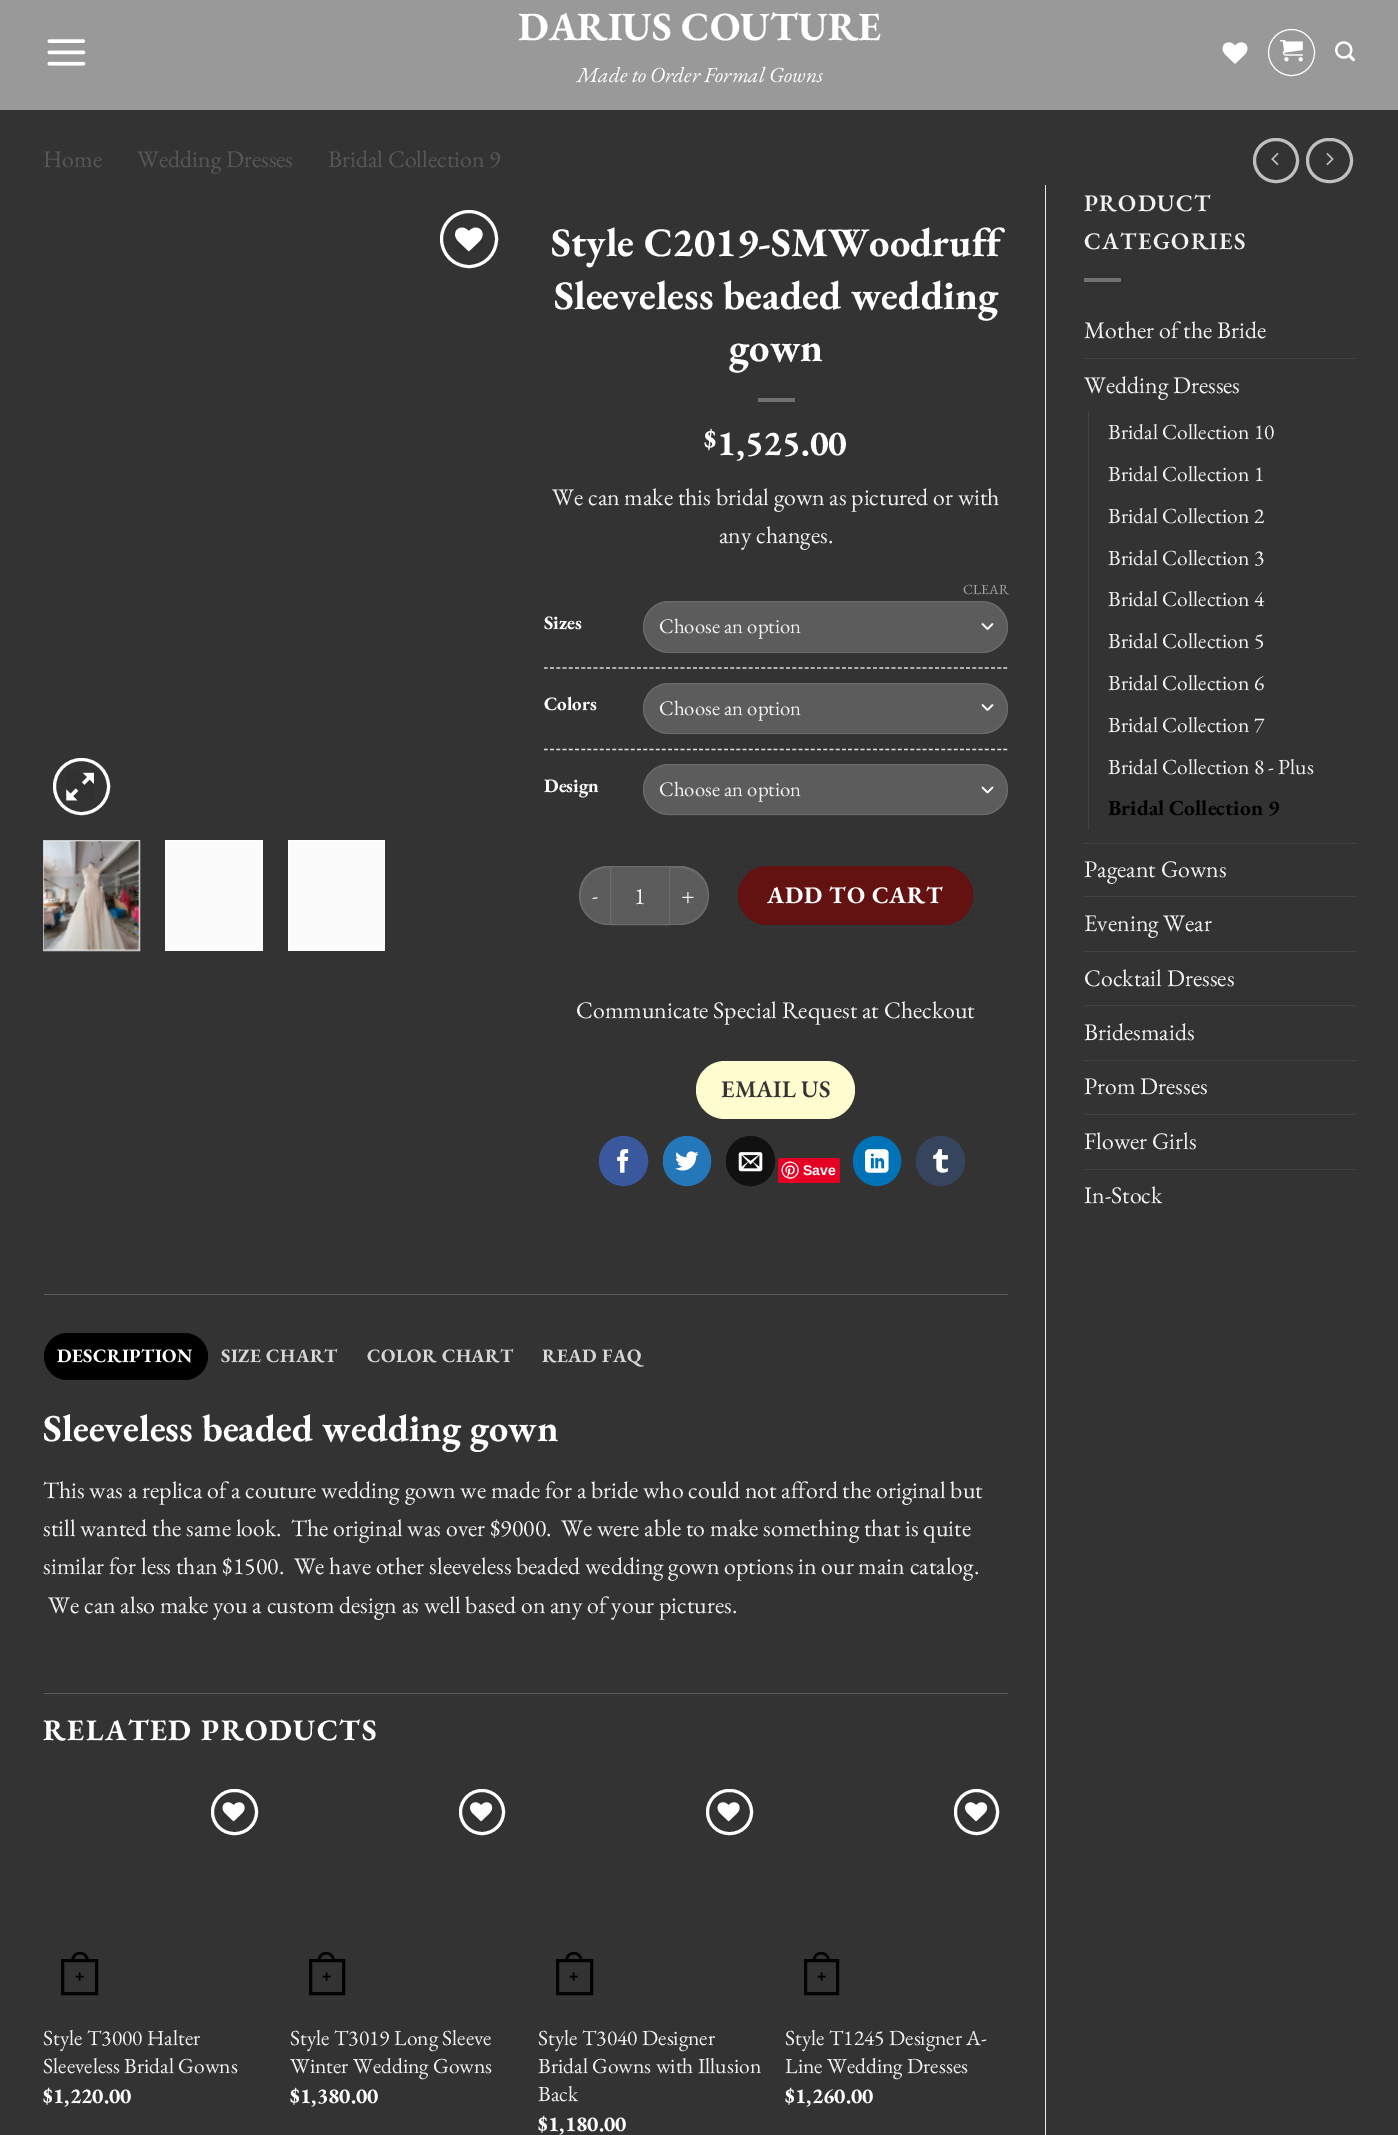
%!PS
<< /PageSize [1398 2135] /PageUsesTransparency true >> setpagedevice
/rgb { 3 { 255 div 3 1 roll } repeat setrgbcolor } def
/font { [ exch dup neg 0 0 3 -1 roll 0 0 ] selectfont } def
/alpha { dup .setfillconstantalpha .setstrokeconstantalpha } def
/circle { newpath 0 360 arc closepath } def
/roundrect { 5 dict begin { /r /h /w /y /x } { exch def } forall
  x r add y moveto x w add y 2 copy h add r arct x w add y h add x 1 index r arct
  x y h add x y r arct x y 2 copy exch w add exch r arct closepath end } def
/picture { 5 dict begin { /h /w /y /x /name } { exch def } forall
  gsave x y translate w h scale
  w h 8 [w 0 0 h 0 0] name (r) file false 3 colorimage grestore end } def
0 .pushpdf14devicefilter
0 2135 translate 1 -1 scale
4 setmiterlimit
51 51 51 rgb
0 0 1398 2135 rectfill
153 153 153 rgb
0 0 1398 110 rectfill
(img/1.rgb) 47 39 39 27 picture
(img/2.rgb) 1222 42 26 22 picture
255 255 255 rgb
1291.5 52.5 23 circle stroke
(img/3.rgb) 1280 40 23 22 picture
(img/4.rgb) 1335 41 20 21 picture
192 192 192 rgb
3 setlinewidth
1254.5 139.5 43 42 21 roundrect stroke
(img/5.rgb) 1271 153 8 13 picture
1307.5 139.5 44 42 21 roundrect stroke
(img/6.rgb) 1326 153 8 13 picture
236 236 236 rgb
1045 185 1 1950 rectfill
255 255 255 rgb
469 239 27.5 circle stroke
(img/7.rgb) 455 227 28 25 picture
81.5 786.5 27 circle stroke
(img/8.rgb) 66 772 28 29 picture
43.5 840.5 moveto 139.5 840.5 lineto 139.5 950.5 lineto 43.5 950.5 lineto closepath gsave fill grestore
204 204 204 rgb
1 setlinewidth
stroke
(img/9.rgb) 43 841 96 110 picture
[
  [165 840 98 111 255 255 255]
  [166 841 95 109 251 251 251]
  [288 840 97 111 255 255 255]
  [289 841 95 109 251 251 251]
  [758 398 37 4 112 112 112]
] { aload pop rgb rectfill } forall
221 221 221 rgb
1.2 setlinewidth
[3.75 2.46] 0 setdash
544 749.5 moveto 1007.5 749.5 lineto stroke
92 92 92 rgb
643 764 365 51 25.5 roundrect fill
255 255 255 rgb
1.7 setlinewidth
1 setlinecap
1 setlinejoin
[] 0 setdash
982.5 787.5 moveto 987.5 792.5 lineto 992.5 787.5 lineto stroke
0.09 alpha
1 setlinewidth
0 setlinecap
0 setlinejoin
643.5 764.5 364 50 25 roundrect stroke
1 alpha
92 92 92 rgb
643 601 365 52 26 roundrect fill
255 255 255 rgb
1.7 setlinewidth
1 setlinecap
1 setlinejoin
982.5 624 moveto 987.5 629 lineto 992.5 624 lineto stroke
0.09 alpha
1 setlinewidth
0 setlinecap
0 setlinejoin
643.5 601.5 364 51 25.5 roundrect stroke
1 alpha
221 221 221 rgb
1.2 setlinewidth
[3.75 2.46] 0 setdash
544 668 moveto 1007.5 668 lineto stroke
92 92 92 rgb
643 683 365 51 25.5 roundrect fill
255 255 255 rgb
1.7 setlinewidth
1 setlinecap
1 setlinejoin
[] 0 setdash
982.5 705 moveto 987.5 710 lineto 992.5 705 lineto stroke
0.09 alpha
1 setlinewidth
0 setlinecap
0 setlinejoin
643.5 683.5 364 50 25 roundrect stroke
1 alpha
92 92 92 rgb
608 866 moveto 610 866 lineto 610 925 lineto 608 925 lineto 592 925 579 912 579 896 curveto 579 895 lineto 579 879 592 866 608 866 curveto closepath fill
0.09 alpha
255 255 255 rgb
608 866 moveto 610 866 lineto 610 925 lineto 568 925 570 866 608 866 curveto closepath 608 868 moveto 610 868 lineto 610 924 lineto 570 924 572 868 608 868 curveto closepath eofill
1 alpha
92 92 92 rgb
610.5 866.5 moveto 669.5 866.5 lineto 669.5 924.5 lineto 610.5 924.5 lineto closepath gsave fill grestore
107 107 107 rgb
stroke
92 92 92 rgb
670 866 moveto 680 866 lineto 696 866 709 879 709 895 curveto 709 896 lineto 709 912 696 925 680 925 curveto 670 925 lineto closepath fill
0.09 alpha
255 255 255 rgb
670 866 moveto 679 866 lineto 696 866 709 879 709 896 curveto 709 912 696 925 679 925 curveto 670 925 lineto closepath 670 868 moveto 679 868 lineto 695 868 708 880 708 896 curveto 708 911 695 924 679 924 curveto 670 924 lineto closepath eofill
1 alpha
99 17 17 rgb
738 866 235 59 29.5 roundrect fill
0.05 alpha
0 0 0 rgb
738.5 866.5 234 58 rectstroke
1 alpha
255 253 208 rgb
696 1061 159 58 29 roundrect fill
58 88 157 rgb
599.5 1136.5 48 49 24 roundrect gsave fill grestore
stroke
(img/10.rgb) 617 1149 12 24 picture
36 120 186 rgb
663.5 1136.5 47 49 23.5 roundrect gsave fill grestore
stroke
(img/11.rgb) 675 1151 24 20 picture
17 17 17 rgb
726.5 1136.5 48 49 24 roundrect gsave fill grestore
stroke
(img/12.rgb) 738 1152 25 20 picture
230 0 35 rgb
778 1158 62 25 2.5 roundrect fill
(img/13.rgb) 781 1161 18 18 picture
0 114 183 rgb
853.5 1136.5 47 49 23.5 roundrect gsave fill grestore
stroke
(img/14.rgb) 865 1149 24 24 picture
54 69 93 rgb
916.5 1136.5 48 49 24 roundrect gsave fill grestore
stroke
(img/15.rgb) 933 1149 15 24 picture
92 92 92 rgb
44 1294 964 1 rectfill
0 0 0 rgb
44 1333 164 47 23.5 roundrect fill
92 92 92 rgb
44 1693 964 1 rectfill
255 255 255 rgb
3 setlinewidth
212.5 1790.5 44 43 21.5 roundrect stroke
(img/16.rgb) 222 1802 23 20 picture
2 2 2 rgb
62.5 1960.5 34 33 rectstroke
80 1952 moveto 86 1952 89 1956.5 89 1962 curveto 71 1962 lineto 71 1956.5 74 1952 80 1952 curveto closepath 80 1954.5 moveto 84.5 1954.5 86 1958 86 1962 curveto 74 1962 lineto 74 1958 75.5 1954.5 80 1954.5 curveto closepath eofill
255 255 255 rgb
482 1812 21.5 circle stroke
(img/17.rgb) 470 1802 23 20 picture
2 2 2 rgb
310.5 1960.5 33 33 rectstroke
326 1952 moveto 332 1952 335 1956.5 335 1962 curveto 317.5 1962 lineto 317.5 1956.5 320.5 1952 326 1952 curveto closepath 326 1954.5 moveto 330.5 1954.5 332.5 1958 332.5 1962 curveto 320 1962 lineto 320 1958 322 1954.5 326 1954.5 curveto closepath eofill
255 255 255 rgb
707.5 1790.5 44 43 21.5 roundrect stroke
(img/16.rgb) 717 1802 23 20 picture
2 2 2 rgb
557.5 1960.5 34 33 rectstroke
574 1952 moveto 579.5 1952 582.5 1956.5 582.5 1962 curveto 565 1962 lineto 565 1956.5 568 1952 574 1952 curveto closepath 574 1954.5 moveto 578 1954.5 580 1958 580 1962 curveto 567.5 1962 lineto 567.5 1958 569.5 1954.5 574 1954.5 curveto closepath eofill
255 255 255 rgb
955.5 1790.5 42 43 21 roundrect stroke
(img/17.rgb) 965 1802 23 20 picture
2 2 2 rgb
805.5 1960.5 32 33 rectstroke
821 1952 moveto 827 1952 830 1956.5 830 1962 curveto 812.5 1962 lineto 812.5 1956.5 815.5 1952 821 1952 curveto closepath 821 1954.5 moveto 825.5 1954.5 827.5 1958 827.5 1962 curveto 815 1962 lineto 815 1958 817 1954.5 821 1954.5 curveto closepath eofill
[
  [1084 278 37 4 112 112 112]
  [1084 358 272 1 67 67 67]
  [1088 411 1 419 67 67 67]
  [1084 843 272 1 67 67 67]
  [1084 896 272 1 67 67 67]
  [1084 951 272 1 67 67 67]
  [1084 1005 272 1 67 67 67]
  [1084 1060 272 1 67 67 67]
  [1084 1114 272 1 67 67 67]
  [1084 1169 272 1 67 67 67]
] { aload pop rgb rectfill } forall
/EBGaramond-Bold 40 font
255 255 255 rgb
518 40 moveto (DARIUS COUTURE) show
/EBGaramond-Italic 21.5 font
577 82 moveto (Made to Order Formal Gowns) show
/EBGaramond-Regular 23.8 font
87 87 87 rgb
[
  [(Home) 43 167]
  [(Wedding Dresses) 137 167]
  [(Bridal Collection 9) 328 167]
] { aload pop moveto show } forall
/EBGaramond-Bold 40.5 font
255 255 255 rgb
[
  [(Style C2019-SMWoodruff) 551 256]
  [(Sleeveless beaded wedding) 554 309]
  [(gown) 729 361]
] { aload pop moveto show } forall
/EBGaramond-Bold 27 font
704 448 moveto ($) show
/EBGaramond-Bold 35.5 font
717 455 moveto (1,525.00) show
/EBGaramond-Regular 23.8 font
241 241 241 rgb
552 505 moveto (We can make this bridal gown as pictured or with) show
719 543 moveto (any changes.) show
/EBGaramond-Bold 19 font
255 255 255 rgb
544 792 moveto (Design) show
/EBGaramond-Regular 14 font
165 165 165 rgb
963 594 moveto (CLEAR) show
/EBGaramond-Regular 20.75 font
241 241 241 rgb
659 796 moveto (Choose an option) show
/EBGaramond-Bold 19 font
255 255 255 rgb
544 629 moveto (Sizes) show
/EBGaramond-Regular 20.75 font
241 241 241 rgb
659 633 moveto (Choose an option) show
/EBGaramond-Bold 19 font
255 255 255 rgb
544 710 moveto (Colors) show
/EBGaramond-Regular 20.75 font
241 241 241 rgb
659 715 moveto (Choose an option) show
/EBGaramond-Regular 23 font
592 903 moveto 1 0 (-) ashow
/EBGaramond-Regular 23.8 font
634 904 moveto (1) show
/EBGaramond-Regular 23 font
681 903 moveto 1 0 (+) ashow
/EBGaramond-Bold 23.8 font
255 255 255 rgb
767 903 moveto 0.75 0 (ADD TO CART) ashow
/EBGaramond-Regular 23.8 font
241 241 241 rgb
576 1018 moveto (Communicate Special Request at Checkout) show
/EBGaramond-SemiBold 23.8 font
51 51 51 rgb
721 1097 moveto (EMAIL US) show
/LiberationSans-Bold 14 font
255 255 255 rgb
803 1175 moveto (Save) show
/EBGaramond-Bold 19 font
57 1362 moveto 0.4 0 (DESCRIPTION) ashow
214 214 214 rgb
221 1362 moveto 0.4 0 (SIZE CHART) ashow
367 1362 moveto 0.4 0 (COLOR CHART) ashow
542 1362 moveto 0.4 0 (READ FAQ) ashow
/EBGaramond-Bold 38.1 font
255 255 255 rgb
43 1441 moveto (Sleeveless beaded wedding gown) show
/EBGaramond-Regular 23.8 font
241 241 241 rgb
[
  [(This was a replica of a couture wedding gown we made for a bride who could not afford the original but) 43 1498]
  [(still wanted the same look.  The original was over $9000.  We were able to make something that is quite) 43 1536]
  [(similar for less than $1500.  We have other sleeveless beaded wedding gown options in our main catalog.) 43 1574]
  [(We can also make you a custom design as well based on any of your pictures.) 48 1613]
] { aload pop moveto show } forall
/EBGaramond-Bold 29.75 font
255 255 255 rgb
43 1740 moveto 1.5 0 (RELATED PRODUCTS) ashow
/LiberationSans-Bold 16 font
0 0 0 rgb
75 1982 moveto (+) show
/EBGaramond-Regular 21.5 font
241 241 241 rgb
43 2045 moveto (Style T3000 Halter) show
43 2073 moveto (Sleeveless Bridal Gowns) show
/EBGaramond-Bold 21.5 font
255 255 255 rgb
43 2103 moveto ($1,220.00) show
/LiberationSans-Bold 16 font
0 0 0 rgb
322 1982 moveto (+) show
/EBGaramond-Regular 21.5 font
241 241 241 rgb
290 2045 moveto (Style T3019 Long Sleeve) show
290 2073 moveto (Winter Wedding Gowns) show
/EBGaramond-Bold 21.5 font
255 255 255 rgb
290 2103 moveto ($1,380.00) show
/LiberationSans-Bold 16 font
0 0 0 rgb
569 1982 moveto (+) show
/EBGaramond-Regular 21.5 font
241 241 241 rgb
[
  [(Style T3040 Designer) 538 2045]
  [(Bridal Gowns with Illusion) 538 2073]
  [(Back) 538 2101]
] { aload pop moveto show } forall
/EBGaramond-Bold 21.5 font
255 255 255 rgb
538 2131 moveto ($1,180.00) show
/LiberationSans-Bold 16 font
0 0 0 rgb
817 1982 moveto (+) show
/EBGaramond-Regular 21.5 font
241 241 241 rgb
785 2045 moveto (Style T1245 Designer A-) show
785 2073 moveto (Line Wedding Dresses) show
/EBGaramond-Bold 21.5 font
255 255 255 rgb
785 2103 moveto ($1,260.00) show
/EBGaramond-SemiBold 23.8 font
241 241 241 rgb
1084 211 moveto 1.25 0 (PRODUCT) ashow
1084 249 moveto 1.25 0 (CATEGORIES) ashow
/EBGaramond-Regular 23.8 font
1084 338 moveto (Mother of the Bride) show
1084 393 moveto (Wedding Dresses) show
/EBGaramond-Regular 21.5 font
[
  [(Bridal Collection 10) 1108 439]
  [(Bridal Collection 1) 1108 481]
  [(Bridal Collection 2) 1108 523]
  [(Bridal Collection 3) 1108 565]
  [(Bridal Collection 4) 1108 606]
  [(Bridal Collection 5) 1108 648]
  [(Bridal Collection 6) 1108 690]
  [(Bridal Collection 7) 1108 732]
  [(Bridal Collection 8 - Plus) 1108 774]
] { aload pop moveto show } forall
/EBGaramond-Bold 21.5 font
0 0 0 rgb
1108 815 moveto (Bridal Collection 9) show
/EBGaramond-Regular 23.8 font
241 241 241 rgb
[
  [(Pageant Gowns) 1084 877]
  [(Evening Wear) 1084 931]
  [(Cocktail Dresses) 1084 986]
  [(Bridesmaids) 1084 1040]
  [(Prom Dresses) 1084 1094]
  [(Flower Girls) 1084 1149]
  [(In-Stock) 1084 1203]
] { aload pop moveto show } forall
.poppdf14devicefilter showpage
